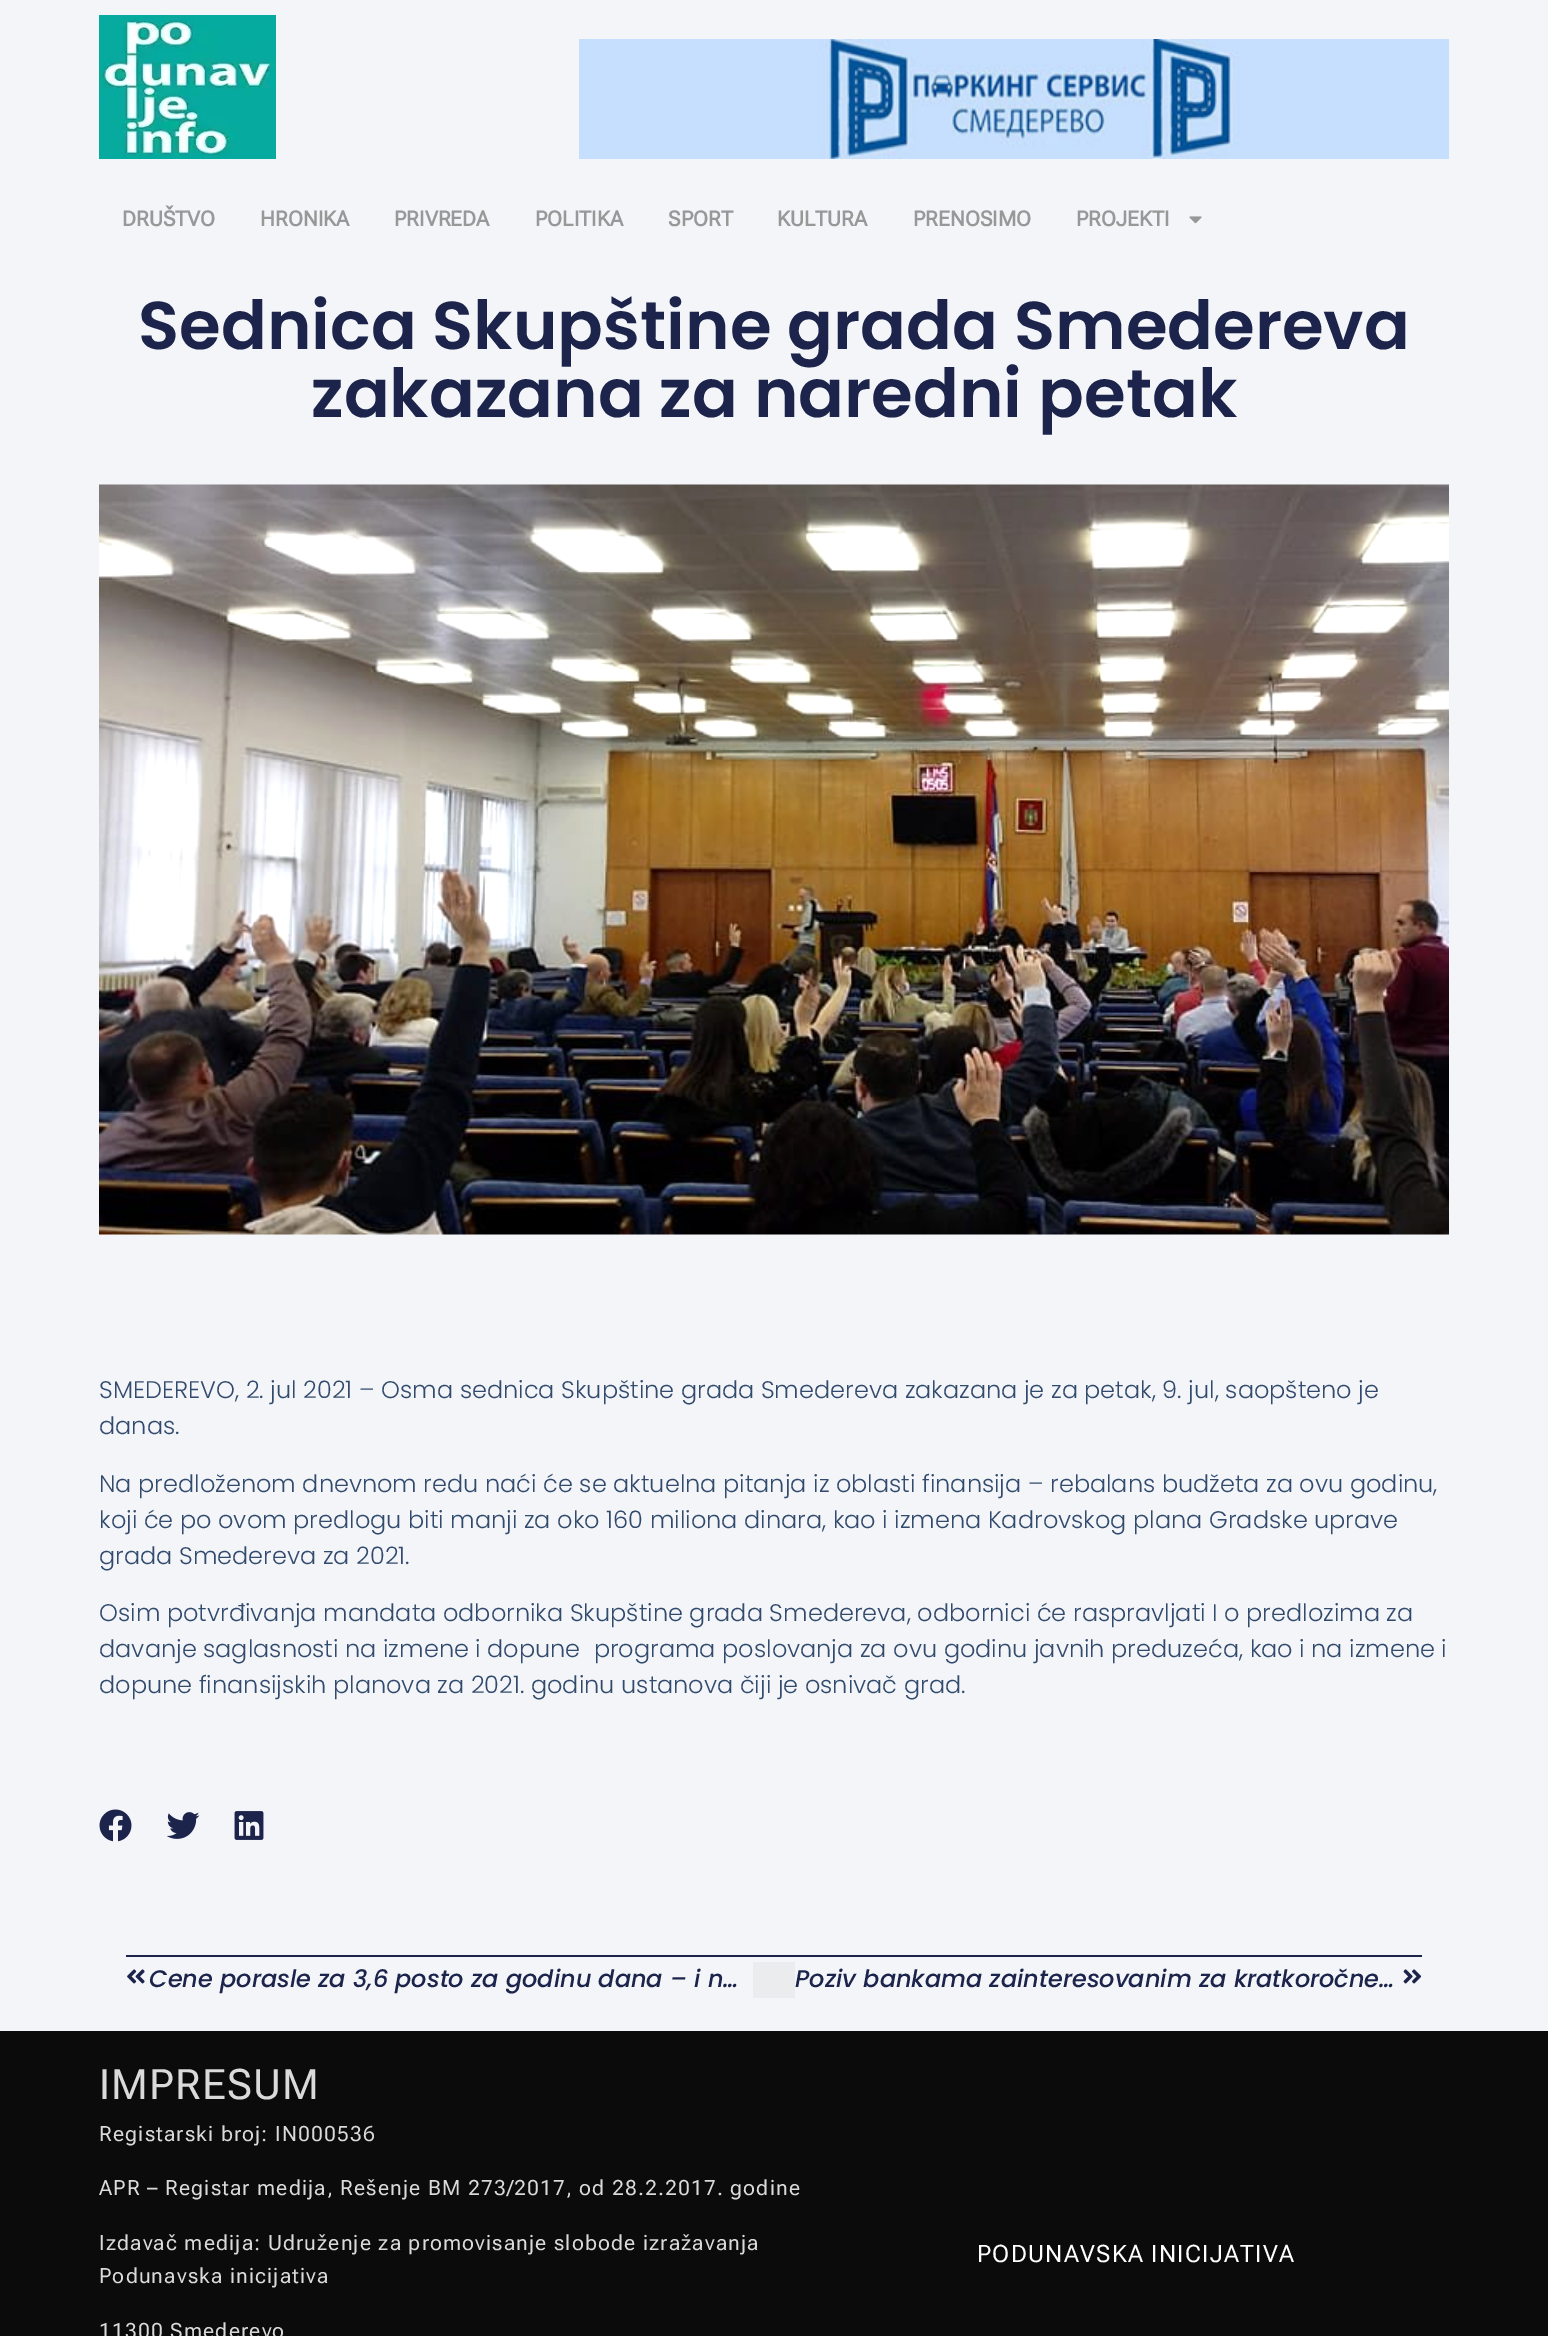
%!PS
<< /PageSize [1548 2336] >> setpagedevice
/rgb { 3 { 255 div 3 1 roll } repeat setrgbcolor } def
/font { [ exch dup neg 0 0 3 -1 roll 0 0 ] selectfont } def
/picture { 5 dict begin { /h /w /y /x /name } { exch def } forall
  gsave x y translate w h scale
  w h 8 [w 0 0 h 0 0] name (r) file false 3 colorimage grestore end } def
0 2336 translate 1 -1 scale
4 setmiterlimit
243 245 248 rgb
0 0 1548 2336 rectfill
(img/1.rgb) 99 15 177 144 picture
(img/2.rgb) 579 39 870 120 picture
(img/3.rgb) 1189 216 13 8 picture
(img/4.rgb) 99 484 1350 751 picture
(img/5.rgb) 99 1809 33 33 picture
(img/6.rgb) 167 1812 33 27 picture
(img/7.rgb) 234 1811 30 29 picture
28 36 75 rgb
126 1955 1296 2 rectfill
(img/8.rgb) 127 1969 18 15 picture
235 236 238 rgb
753 1962 42 36 rectfill
(img/9.rgb) 1403 1969 19 15 picture
11 11 11 rgb
0 2031 1548 305 rectfill
/RobotoFlex-Bold 21 font
152 152 153 rgb
[
  [(DRUŠTVO) 122 226]
  [(HRONIKA) 260 226]
  [(PRIVREDA) 394 226]
  [(POLITIKA) 535 226]
  [(SPORT) 668 226]
  [(KULTURA) 777 226]
  [(PRENOSIMO) 913 226]
  [(PROJEKTI) 1076 226]
] { aload pop moveto show } forall
/Poppins-SemiBold 67.5 font
28 36 75 rgb
138 349 moveto (Sednica Skupštine grada Smedereva) show
311 417 moveto (zakazana za naredni petak) show
/Poppins-Light 24 font
50 74 109 rgb
[
  [(SMEDEREVO, 2. jul 2021 – Osma sednica Skupštine grada Smedereva zakazana je za petak, 9. jul, saopšteno je) 99 1398]
  [(danas.) 99 1434]
  [(Na predloženom dnevnom redu naći će se aktuelna pitanja iz oblasti finansija – rebalans budžeta za ovu godinu,) 99 1492]
  [(koji će po ovom predlogu biti manji za oko 160 miliona dinara, kao i izmena Kadrovskog plana Gradske uprave) 99 1528]
  [(grada Smedereva za 2021.) 99 1564]
  [(Osim potvrđivanja mandata odbornika Skupštine grada Smedereva, odbornici će raspravljati I o predlozima za) 99 1621]
  [(davanje saglasnosti na izmene i dopune  programa poslovanja za ovu godinu javnih preduzeća, kao i na izmene i) 99 1657]
  [(dopune finansijskih planova za 2021. godinu ustanova čiji je osnivač grad.) 99 1693]
] { aload pop moveto show } forall
/Poppins-MediumItalic 24 font
28 36 75 rgb
149 1987 moveto (Cene porasle za 3,6 posto za godinu dana – i n…) show
795 1987 moveto (Poziv bankama zainteresovanim za kratkoročne…) show
/RobotoFlex-Regular 42 font
218 218 218 rgb
99 2099 moveto 1.15 0 (IMPRESUM) ashow
/RobotoFlex-Regular 21 font
99 2141 moveto 1.15 0 (Registarski broj: IN000536) ashow
99 2195 moveto 1.15 0 (APR – Registar medija, Rešenje BM 273/2017, od 28.2.2017. godine) ashow
99 2250 moveto 1.15 0 (Izdavač medija: Udruženje za promovisanje slobode izražavanja) ashow
99 2283 moveto 1.15 0 (Podunavska inicijativa) ashow
99 2338 moveto 1.15 0 (11300 Smederevo) ashow
/RobotoFlex-Regular 24 font
255 255 255 rgb
977 2262 moveto 1.3 0 (PODUNAVSKA INICIJATIVA) ashow
showpage
